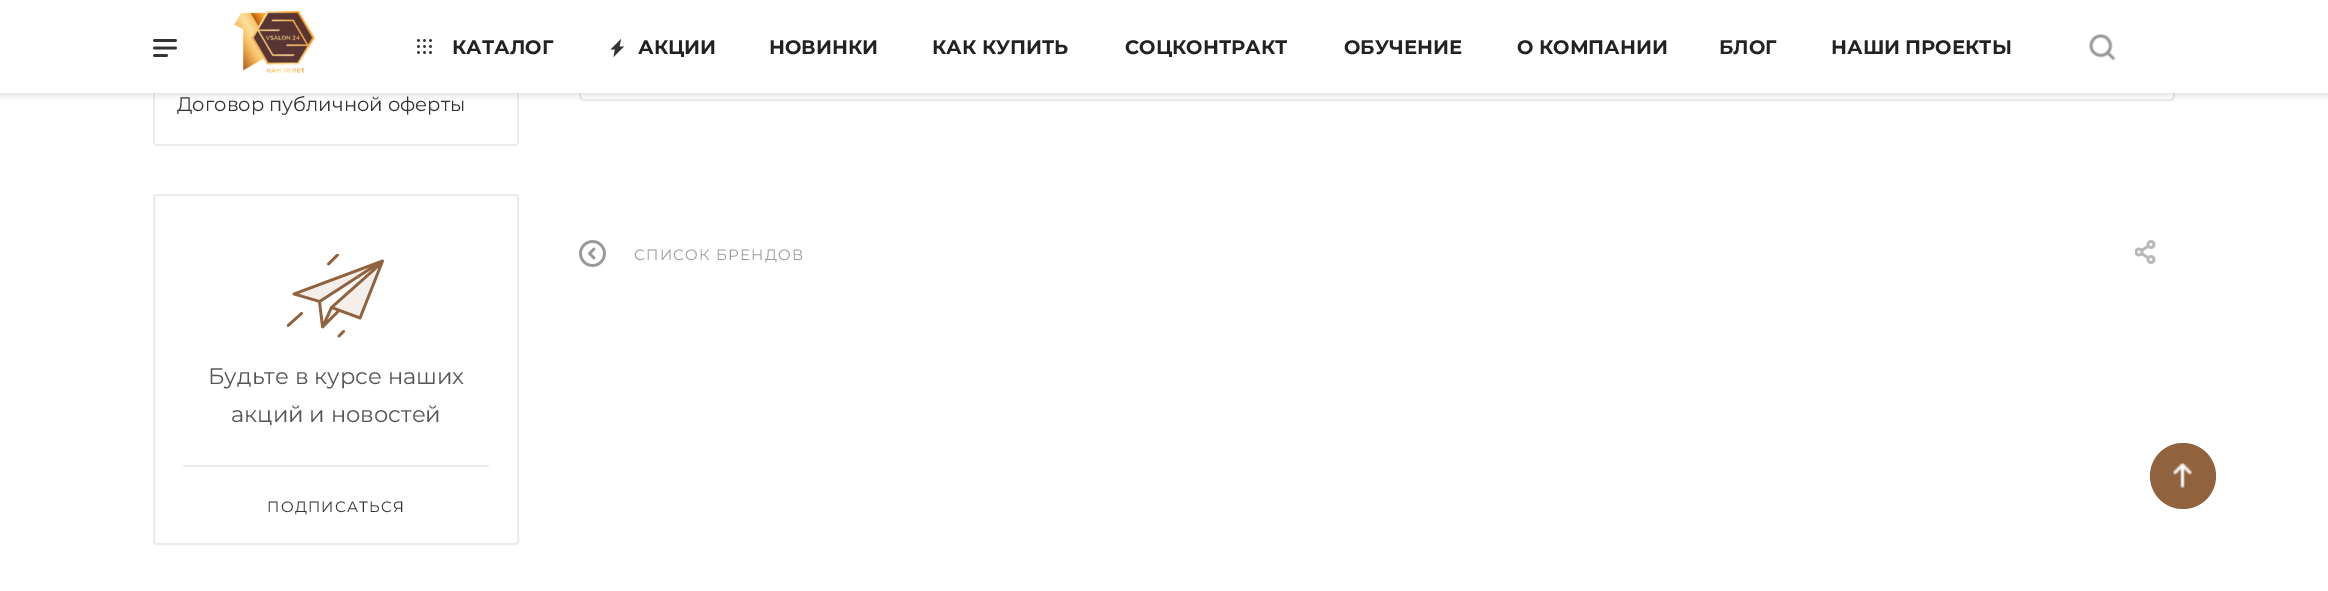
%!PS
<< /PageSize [2328 591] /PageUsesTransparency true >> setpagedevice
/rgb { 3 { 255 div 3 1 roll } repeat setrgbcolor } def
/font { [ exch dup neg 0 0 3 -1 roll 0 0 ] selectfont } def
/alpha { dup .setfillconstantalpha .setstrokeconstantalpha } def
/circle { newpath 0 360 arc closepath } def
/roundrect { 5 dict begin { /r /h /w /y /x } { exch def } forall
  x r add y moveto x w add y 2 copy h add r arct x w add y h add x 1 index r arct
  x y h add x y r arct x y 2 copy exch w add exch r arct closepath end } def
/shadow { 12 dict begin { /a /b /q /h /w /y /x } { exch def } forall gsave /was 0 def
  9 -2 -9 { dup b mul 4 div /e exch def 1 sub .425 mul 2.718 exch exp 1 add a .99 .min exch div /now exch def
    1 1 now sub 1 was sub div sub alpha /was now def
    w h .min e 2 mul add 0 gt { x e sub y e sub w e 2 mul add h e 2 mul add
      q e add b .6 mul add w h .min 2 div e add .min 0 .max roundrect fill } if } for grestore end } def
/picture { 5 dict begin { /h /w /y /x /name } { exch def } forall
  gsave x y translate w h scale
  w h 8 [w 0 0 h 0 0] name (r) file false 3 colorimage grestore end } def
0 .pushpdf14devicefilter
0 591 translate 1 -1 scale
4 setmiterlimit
255 255 255 rgb
0 0 2328 591 rectfill
236 236 236 rgb
156 65 moveto 154 65 153 66 153 68 curveto 153 141 lineto 153 144 155 146 158 146 curveto 514 146 lineto 517 146 519 144 519 141 curveto 519 68 lineto 519 66 518 65 516 65 curveto closepath 156 67 moveto 155 68 lineto 155 143 lineto 156 144 lineto 516 144 lineto 517 143 lineto 517 68 lineto 516 67 lineto closepath eofill
2 setlinewidth
580 -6 1594 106 4 roundrect stroke
0 0 0 rgb
0 2 2328 93 0 4 0.14 shadow
255 255 255 rgb
0 0 2328 93 rectfill
(img/1.rgb) 153 39 24 18 picture
(img/2.rgb) 234 11 81 62 picture
(img/3.rgb) 417 39 15 15 picture
51 51 51 rgb
621 39 moveto 610.5 49.5 lineto 615 49.5 lineto 613.5 57 lineto 624 46.5 lineto 619.5 46.5 lineto closepath eofill
(img/4.rgb) 2089 34 27 27 picture
236 236 236 rgb
154 195 364 349 2 roundrect stroke
(img/5.rgb) 287 254 97 84 picture
183 465 306 2 rectfill
(img/6.rgb) 579 240 27 27 picture
(img/7.rgb) 2135 240 21 24 picture
144 98 62 rgb
2183 476 33 circle fill
(img/8.rgb) 2173 463 19 26 picture
/Montserrat-Bold 19.5 font
34 34 34 rgb
[
  [(КАТАЛОГ) 452 54]
  [(АКЦИИ) 638 54]
  [(НОВИНКИ) 769 54]
  [(КАК КУПИТЬ) 932 54]
  [(СОЦКОНТРАКТ) 1125 54]
  [(ОБУЧЕНИЕ) 1344 54]
  [(О КОМПАНИИ) 1517 54]
  [(БЛОГ) 1719 54]
  [(НАШИ ПРОЕКТЫ) 1831 54]
] { aload pop moveto show } forall
/Montserrat-Regular 19.5 font
51 51 51 rgb
177 111 moveto (Договор публичной оферты) show
/Montserrat-Regular 22.5 font
85 85 85 rgb
208 384 moveto (Будьте в курсе наших) show
231 422 moveto (акций и новостей) show
/Montserrat-Regular 15 font
51 51 51 rgb
267 512 moveto 1.25 0 (ПОДПИСАТЬСЯ) ashow
153 153 153 rgb
634 260 moveto 1.25 0 (СПИСОК БРЕНДОВ) ashow
.poppdf14devicefilter showpage
